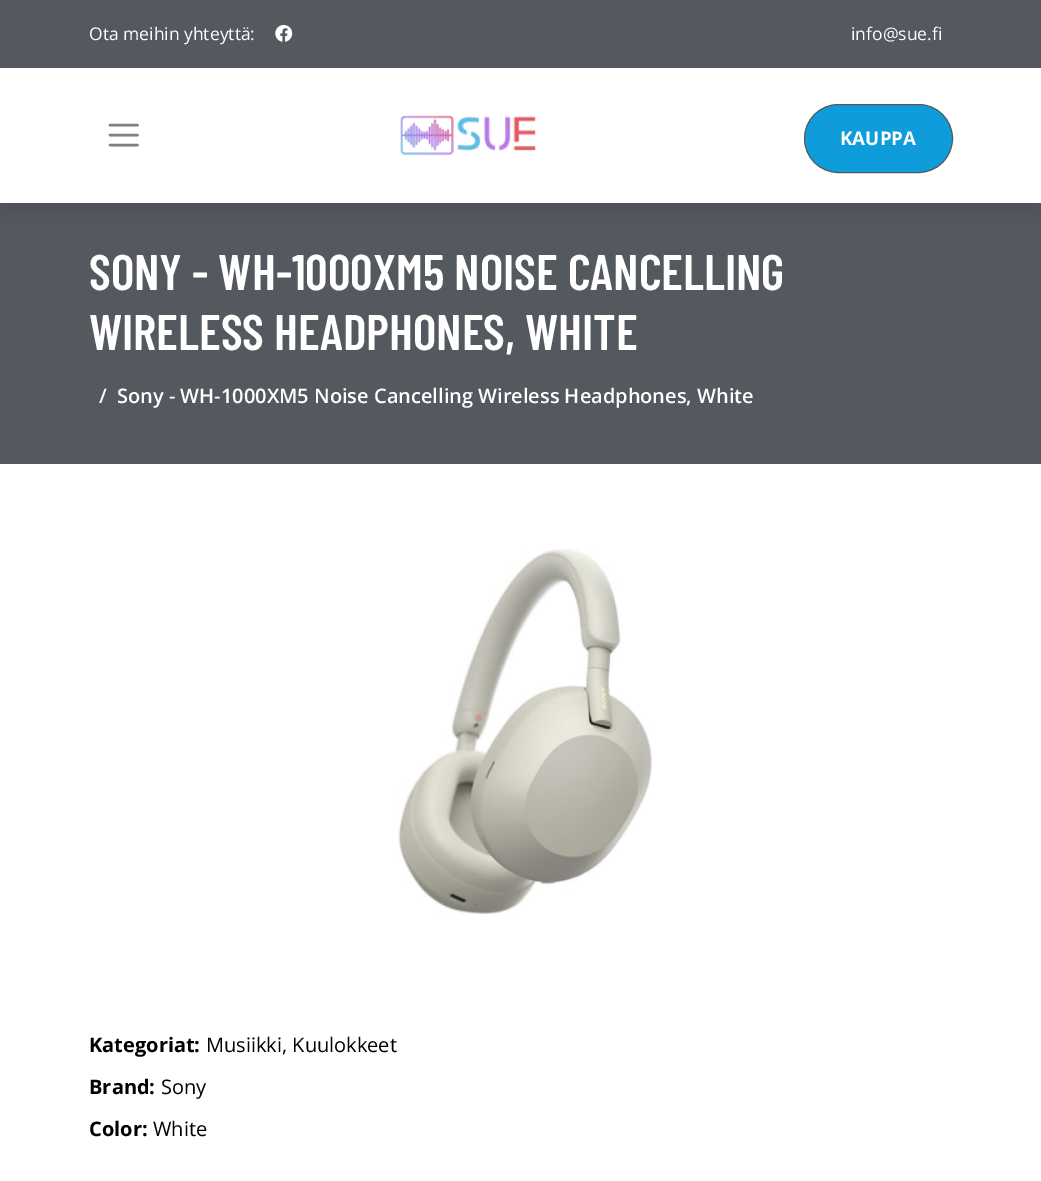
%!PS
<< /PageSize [1041 1181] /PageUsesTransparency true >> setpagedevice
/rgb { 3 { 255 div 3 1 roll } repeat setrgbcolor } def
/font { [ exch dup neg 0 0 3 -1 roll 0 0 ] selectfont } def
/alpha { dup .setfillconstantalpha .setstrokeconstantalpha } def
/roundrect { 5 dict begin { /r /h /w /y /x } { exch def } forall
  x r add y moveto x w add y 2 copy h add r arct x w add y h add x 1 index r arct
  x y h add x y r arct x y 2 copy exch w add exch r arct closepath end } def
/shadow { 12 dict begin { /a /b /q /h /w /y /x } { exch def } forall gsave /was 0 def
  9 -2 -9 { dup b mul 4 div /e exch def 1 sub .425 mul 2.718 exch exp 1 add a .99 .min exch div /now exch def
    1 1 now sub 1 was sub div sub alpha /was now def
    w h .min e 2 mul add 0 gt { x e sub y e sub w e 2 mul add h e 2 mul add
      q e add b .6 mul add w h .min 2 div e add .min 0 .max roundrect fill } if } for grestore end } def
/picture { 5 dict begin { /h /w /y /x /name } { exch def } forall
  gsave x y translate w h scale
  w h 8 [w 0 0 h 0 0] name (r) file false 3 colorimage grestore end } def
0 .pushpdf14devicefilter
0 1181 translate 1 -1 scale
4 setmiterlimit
255 255 255 rgb
0 0 1041 1181 rectfill
84 89 95 rgb
0 0 1041 68 rectfill
(img/1.rgb) 275 25 18 17 picture
0 203 1041 261 rectfill
0 0 0 rgb
0 79 1041 135 0 12.5 0.09 shadow
255 255 255 rgb
0 68 1041 135 rectfill
128 128 128 rgb
2.5 setlinewidth
1 setlinecap
110 125 moveto 137.5 125 lineto 110 135 moveto 137.5 135 lineto 110 145 moveto 137.5 145 lineto stroke
(img/2.rgb) 400 115 137 41 picture
14 157 218 rgb
804.5 104.5 148 68 34 roundrect gsave fill grestore
84 89 95 rgb
1 setlinewidth
0 setlinecap
stroke
(img/3.rgb) 398 548 255 367 picture
/OpenSans-Regular 17.5 font
255 255 255 rgb
89 40 moveto (Ota meihin yhteyttä:) show
851 40 moveto (info@sue.fi) show
/OpenSans-Bold 18.75 font
840 145 moveto (KAUPPA) show
/BarlowCondensed-SemiBold 50 font
89 290 moveto (SONY - WH-1000XM5 NOISE CANCELLING) show
89 350 moveto (WIRELESS HEADPHONES, WHITE) show
/OpenSans-SemiBold 20 font
99 403 moveto (/) show
117 403 moveto (Sony - WH-1000XM5 Noise Cancelling Wireless Headphones, White) show
/OpenSans-Bold 20 font
0 0 0 rgb
89 1052 moveto (Kategoriat:) show
/OpenSans-Regular 20 font
206 1052 moveto (Musiikki, Kuulokkeet) show
/OpenSans-Bold 20 font
89 1094 moveto (Brand:) show
/OpenSans-Regular 20 font
161 1094 moveto (Sony) show
/OpenSans-Bold 20 font
89 1136 moveto (Color:) show
/OpenSans-Regular 20 font
153 1136 moveto (White) show
.poppdf14devicefilter showpage
